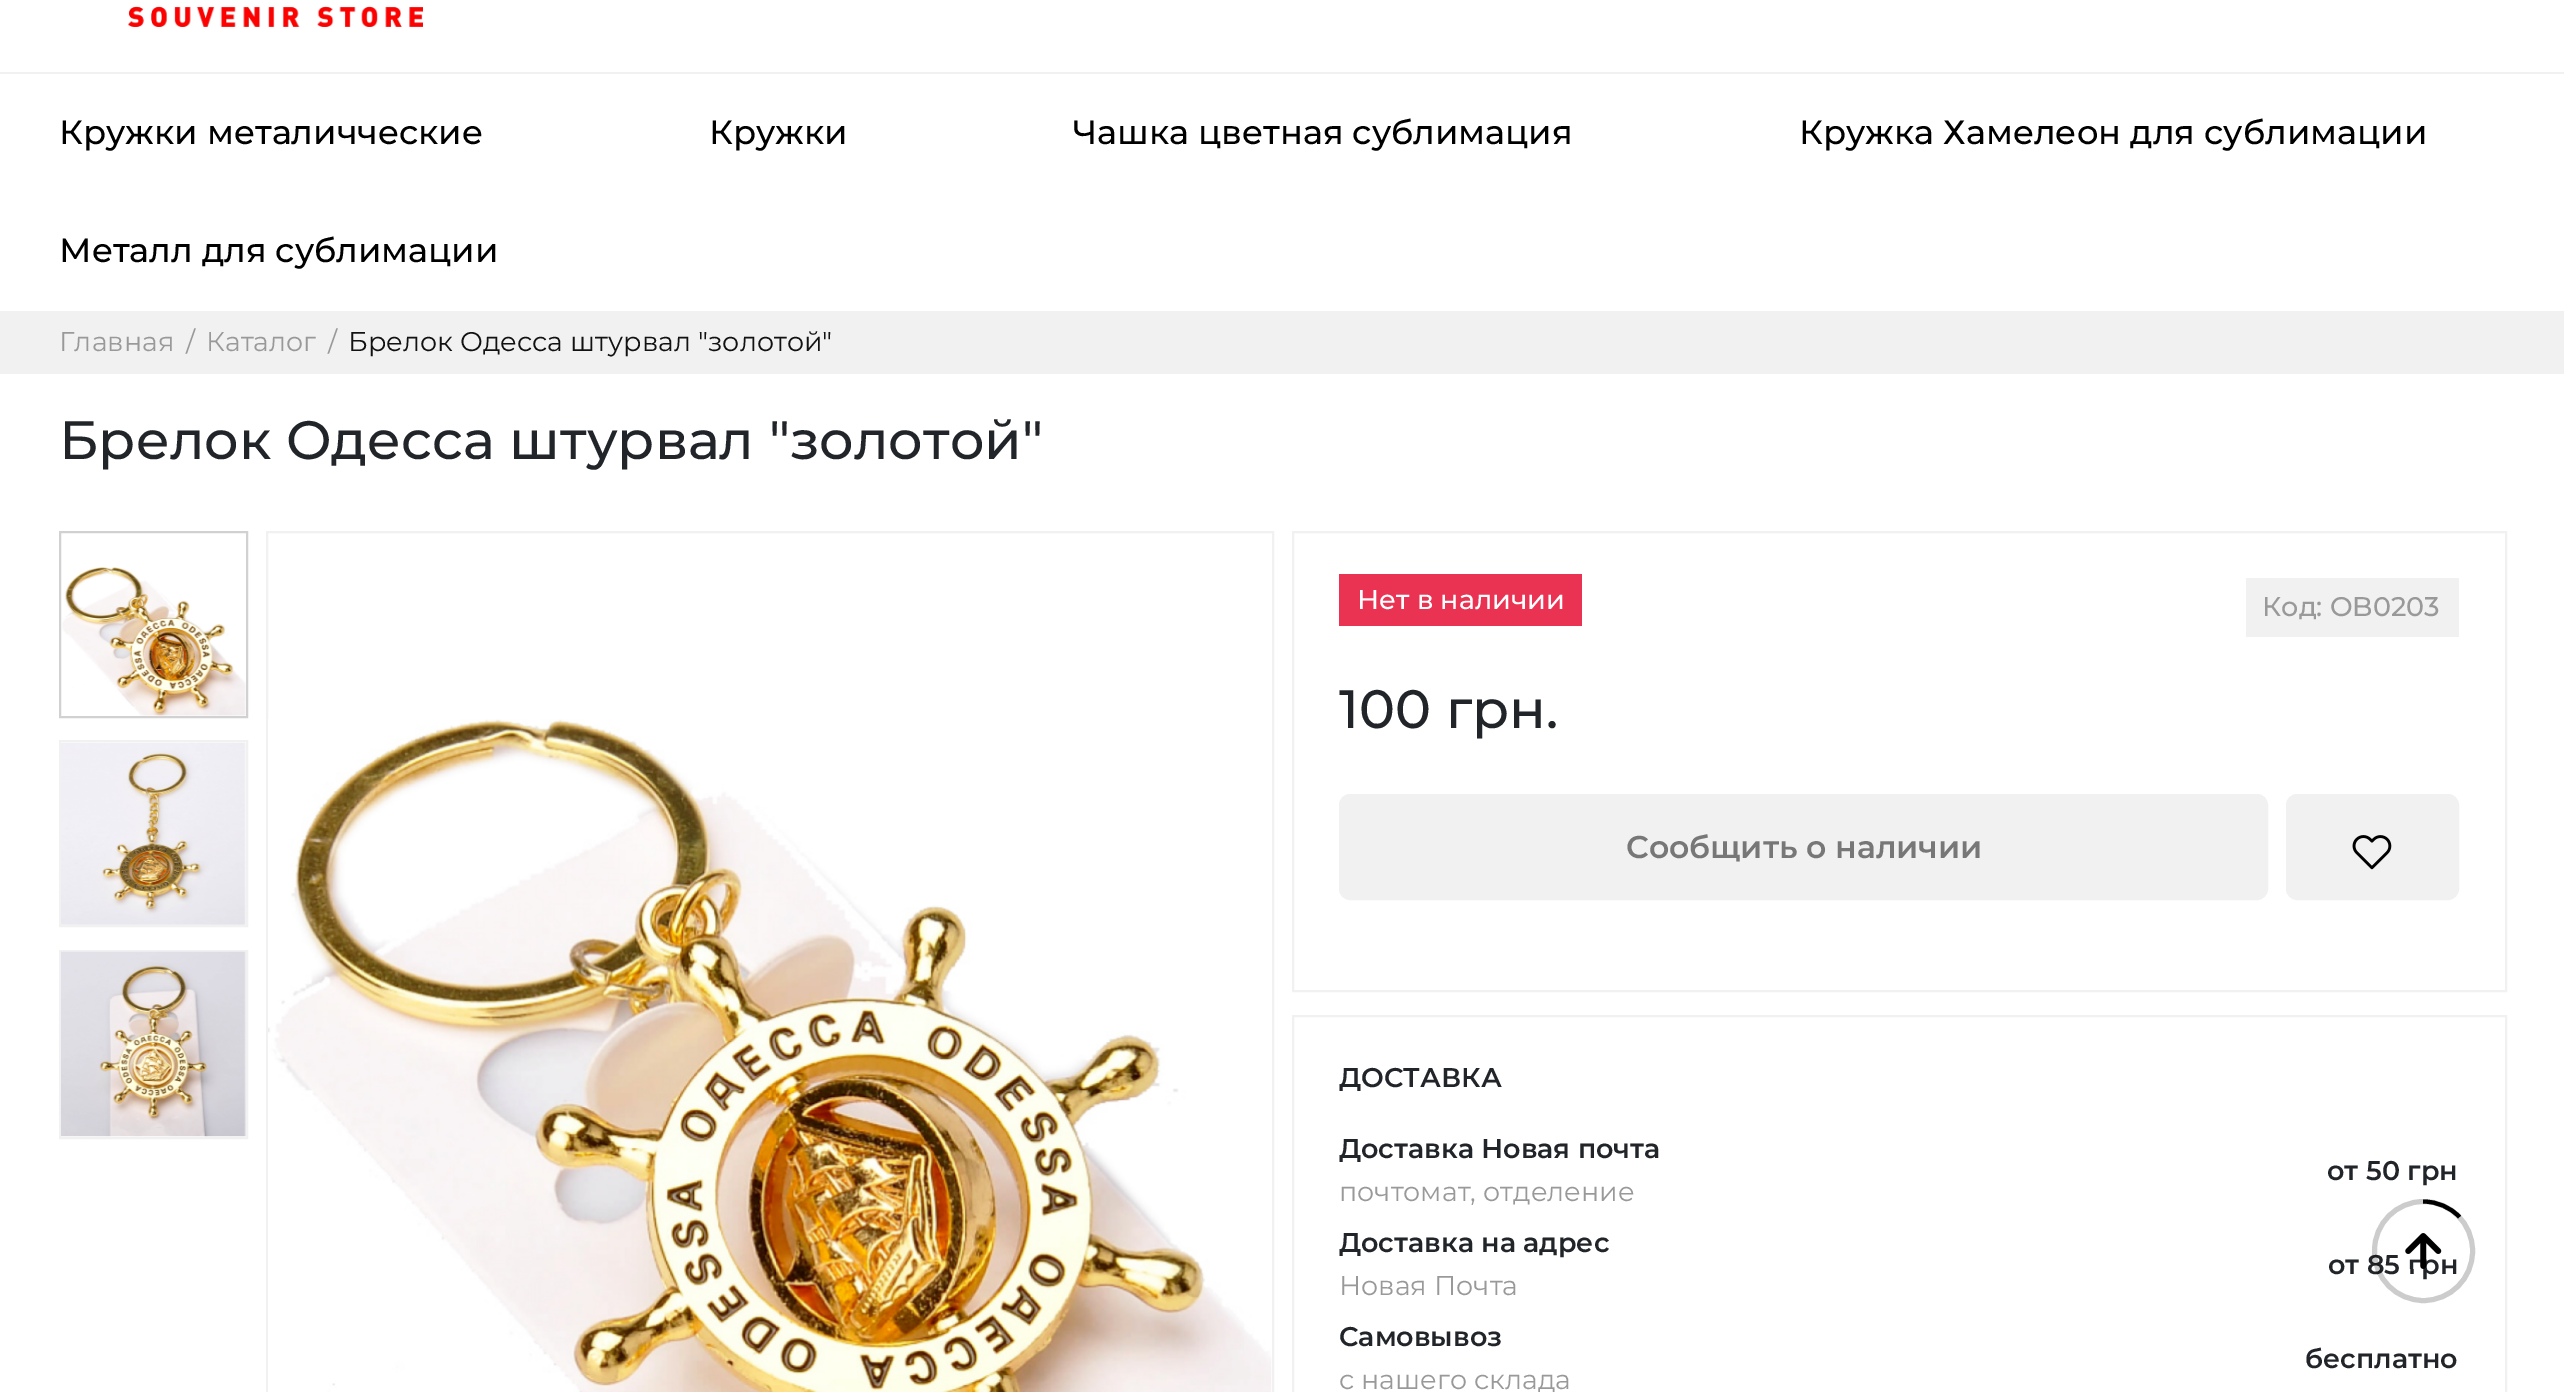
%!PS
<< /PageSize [2564 1392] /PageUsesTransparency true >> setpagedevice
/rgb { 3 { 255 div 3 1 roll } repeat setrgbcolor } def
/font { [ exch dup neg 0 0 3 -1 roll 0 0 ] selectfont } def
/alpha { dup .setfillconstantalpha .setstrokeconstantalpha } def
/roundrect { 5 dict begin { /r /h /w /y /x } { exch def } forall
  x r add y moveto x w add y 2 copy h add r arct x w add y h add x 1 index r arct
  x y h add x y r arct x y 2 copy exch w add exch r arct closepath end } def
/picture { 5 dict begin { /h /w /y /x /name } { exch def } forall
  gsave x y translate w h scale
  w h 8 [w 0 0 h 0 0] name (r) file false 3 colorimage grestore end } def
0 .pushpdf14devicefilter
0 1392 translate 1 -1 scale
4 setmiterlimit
255 255 255 rgb
0 0 2564 1392 rectfill
(img/1.rgb) 128 6 295 21 picture
241 241 241 rgb
0 72 2564 2 rectfill
0 311 2564 63 rectfill
209 209 209 rgb
2 setlinewidth
60 532 187 185 rectstroke
(img/2.rgb) 62 567 184 149 picture
241 241 241 rgb
60 741 187 185 rectstroke
(img/3.rgb) 61 742 185 183 picture
60 951 187 187 rectstroke
(img/4.rgb) 61 951 185 186 picture
267 532 1006 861 rectstroke
(img/5.rgb) 268 719 1004 673 picture
1293 532 1213 459 rectstroke
234 50 83 rgb
1339 574 243 52 rectfill
241 241 241 rgb
2246 578 213 59 rectfill
1340 795 927 104 10 roundrect gsave fill grestore
stroke
2287 795 171 104 10 roundrect gsave fill grestore
stroke
(img/6.rgb) 2352 835 40 35 picture
1293 1016 1213 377 rectstroke
/Montserrat-Medium 33.75 font
0 0 0 rgb
[
  [(Кружки металичческие) 59 144]
  [(Кружки) 709 144]
  [(Чашка цветная сублимация) 1073 144]
  [(Кружка Хамелеон для сублимации) 1799 144]
  [(Металл для сублимации) 59 262]
] { aload pop moveto show } forall
/Montserrat-Regular 27 font
153 153 153 rgb
[
  [(Главная) 59 351]
  [(/) 186 351]
  [(Каталог) 206 351]
  [(/) 328 351]
] { aload pop moveto show } forall
18 18 18 rgb
348 351 moveto (Брелок Одесса штурвал "золотой") show
/Montserrat-Medium 54 font
33 37 41 rgb
59 459 moveto (Брелок Одесса штурвал "золотой") show
/Montserrat-Medium 27 font
255 255 255 rgb
1357 609 moveto (Нет в наличии) show
153 153 153 rgb
2262 616 moveto (Код: OB0203) show
/Montserrat-Medium 54 font
33 37 41 rgb
1339 728 moveto (100 грн.) show
/Montserrat-SemiBold 31.5 font
119 119 119 rgb
1626 858 moveto (Сообщить о наличии) show
/Montserrat-SemiBold 27 font
33 37 41 rgb
1339 1087 moveto (ДОСТАВКА) show
1339 1158 moveto (Доставка Новая почта) show
/Montserrat-Regular 27 font
153 153 153 rgb
1339 1201 moveto (почтомат, отделение) show
/Montserrat-SemiBold 27 font
33 37 41 rgb
2327 1180 moveto (от 50 грн) show
1339 1252 moveto (Доставка на адрес) show
/Montserrat-Regular 27 font
153 153 153 rgb
1339 1295 moveto (Новая Почта) show
/Montserrat-SemiBold 27 font
33 37 41 rgb
2328 1274 moveto (от 85 грн) show
1339 1346 moveto (Самовывоз) show
/Montserrat-Regular 27 font
153 153 153 rgb
1339 1389 moveto (с нашего склада) show
/Montserrat-SemiBold 27 font
33 37 41 rgb
2305 1368 moveto (бесплатно) show
0.2 alpha
0 0 0 rgb
5 setlinewidth
2374.5 1201.5 98 99 49 roundrect stroke
1 alpha
4.1 setlinewidth
2423 1201.5 moveto 2437.5 1201.5 2450.5 1207.5 2459.5 1217 curveto stroke
(img/7.rgb) 2405 1233 37 36 picture
.poppdf14devicefilter showpage
